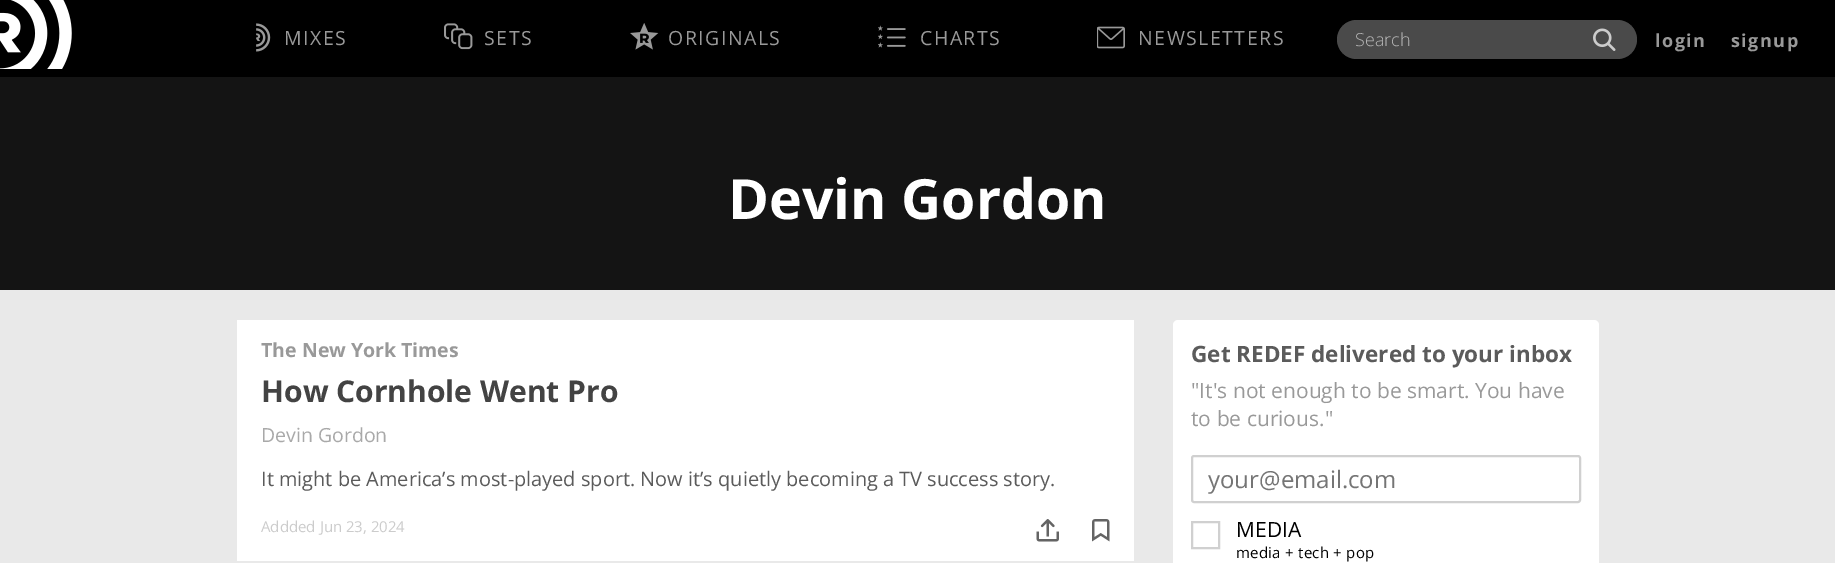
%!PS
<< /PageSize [1835 563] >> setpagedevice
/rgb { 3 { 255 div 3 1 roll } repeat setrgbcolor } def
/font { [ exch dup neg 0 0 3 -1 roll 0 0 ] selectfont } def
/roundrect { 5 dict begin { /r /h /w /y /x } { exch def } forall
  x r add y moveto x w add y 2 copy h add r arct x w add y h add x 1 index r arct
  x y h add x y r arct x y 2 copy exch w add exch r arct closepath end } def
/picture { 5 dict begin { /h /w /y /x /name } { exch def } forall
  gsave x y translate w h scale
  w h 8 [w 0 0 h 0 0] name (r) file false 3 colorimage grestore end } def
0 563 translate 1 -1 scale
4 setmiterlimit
20 20 20 rgb
0 0 1835 563 rectfill
0 0 0 rgb
0 0 1835 77 rectfill
(img/1.rgb) 0 0 72 69 picture
(img/2.rgb) 256 23 15 29 picture
(img/3.rgb) 444 23 29 27 picture
(img/4.rgb) 630 23 29 27 picture
(img/5.rgb) 878 25 28 23 picture
(img/6.rgb) 1097 26 28 23 picture
74 74 74 rgb
1337 20 300 39 19.5 roundrect fill
(img/7.rgb) 1593 28 23 23 picture
233 233 233 rgb
0 290 1835 273 rectfill
255 255 255 rgb
237 320 897 241 rectfill
(img/8.rgb) 1036 519 23 23 picture
(img/9.rgb) 1092 519 18 23 picture
1173 320 426 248 5 roundrect fill
208 208 208 rgb
2 setlinewidth
1192 456 388 46 2 roundrect stroke
1192 522 27 26 rectstroke
/OpenSans-Regular 19.5 font
153 153 153 rgb
284 45 moveto 1.5 0 (MIXES) ashow
484 45 moveto 1.5 0 (SETS) ashow
668 45 moveto 1.5 0 (ORIGINALS) ashow
920 45 moveto 1.5 0 (CHARTS) ashow
1138 45 moveto 1.5 0 (NEWSLETTERS) ashow
/OpenSans-Light 18 font
183 183 183 rgb
1355 46 moveto (Search) show
/OpenSans-Bold 18 font
153 153 153 rgb
1655 47 moveto 1.5 0 (login) ashow
1731 47 moveto 1.5 0 (signup) ashow
/OpenSans-Bold 55.5 font
255 255 255 rgb
728 219 moveto (Devin Gordon) show
/OpenSans-Bold 19.5 font
153 153 153 rgb
261 357 moveto (The New York Times) show
/OpenSans-Bold 30 font
67 67 67 rgb
261 402 moveto (How Cornhole Went Pro) show
/OpenSans-Regular 19.5 font
169 169 169 rgb
261 442 moveto (Devin Gordon) show
/OpenSans-Regular 19.95 font
91 91 91 rgb
261 486 moveto (It might be America’s most-played sport. Now it’s quietly becoming a TV success story.) show
/OpenSans-Regular 15 font
204 204 204 rgb
261 532 moveto (Addded Jun 23, 2024) show
/OpenSans-Bold 22.5 font
91 91 91 rgb
1191 362 moveto (Get REDEF delivered to your inbox) show
/OpenSans-Regular 21 font
153 153 153 rgb
1191 398 moveto ("It's not enough to be smart. You have) show
1191 426 moveto (to be curious.") show
gsave
1208 462 357 33 rectclip
/OpenSans-Regular 24 font
117 117 117 rgb
1208 488 moveto (your@email.com) show
grestore
0 0 0 rgb
1236 537 moveto (MEDIA) show
/OpenSans-Regular 15 font
1236 558 moveto 0.25 0 (media + tech + pop) ashow
showpage
